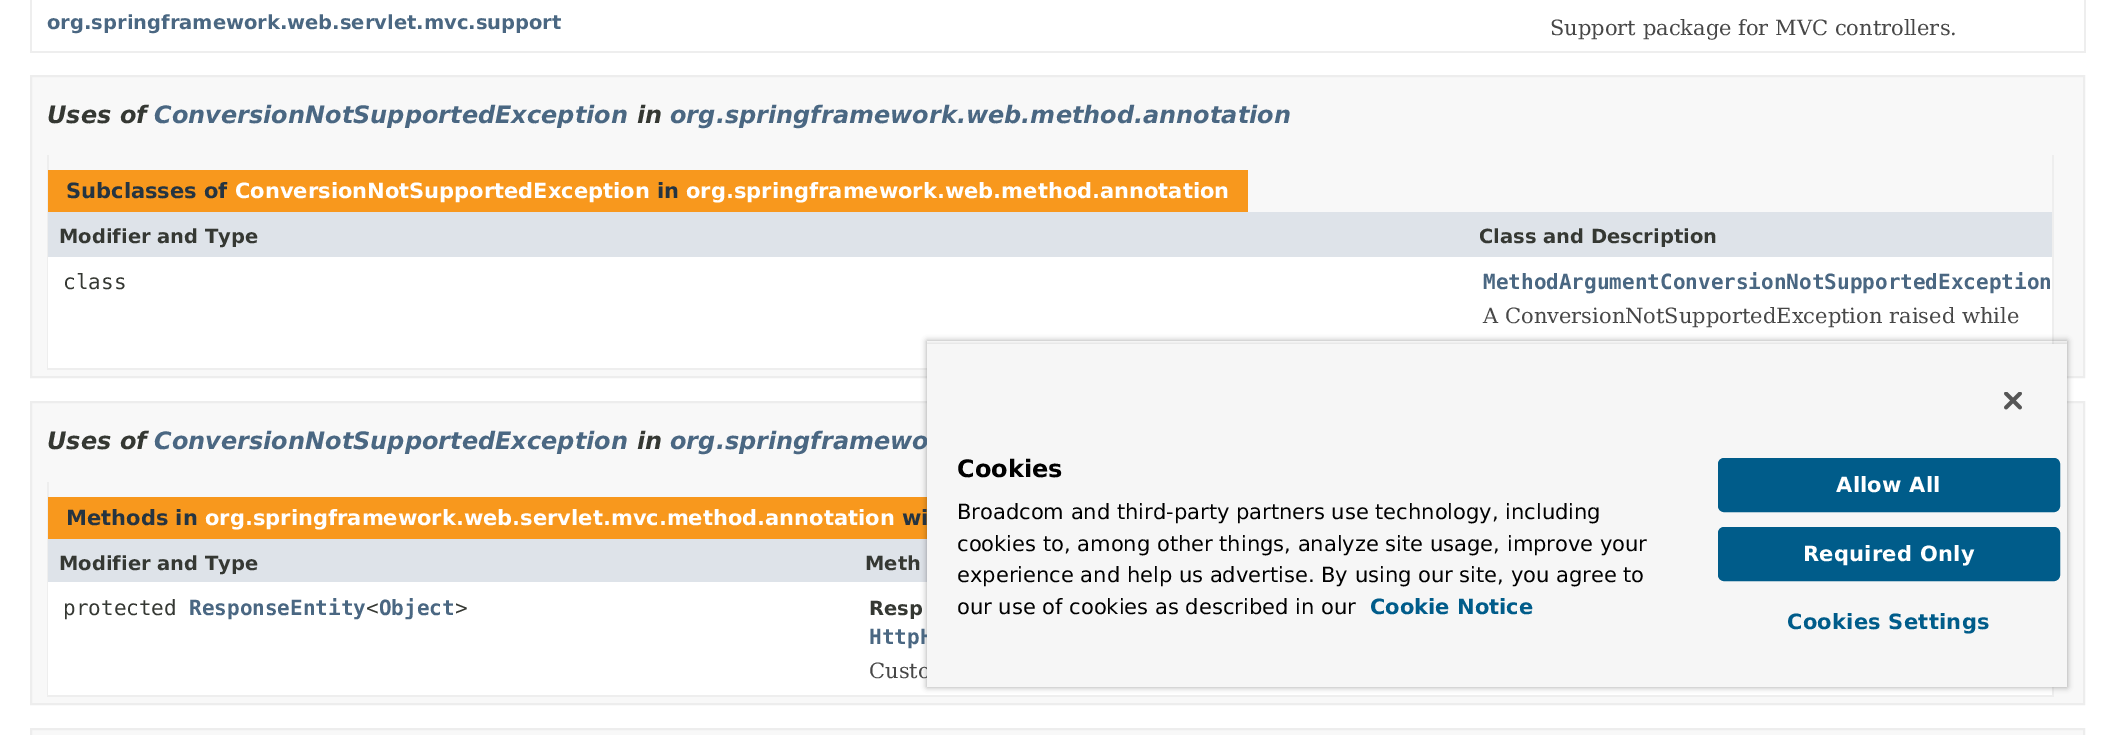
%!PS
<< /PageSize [2114 735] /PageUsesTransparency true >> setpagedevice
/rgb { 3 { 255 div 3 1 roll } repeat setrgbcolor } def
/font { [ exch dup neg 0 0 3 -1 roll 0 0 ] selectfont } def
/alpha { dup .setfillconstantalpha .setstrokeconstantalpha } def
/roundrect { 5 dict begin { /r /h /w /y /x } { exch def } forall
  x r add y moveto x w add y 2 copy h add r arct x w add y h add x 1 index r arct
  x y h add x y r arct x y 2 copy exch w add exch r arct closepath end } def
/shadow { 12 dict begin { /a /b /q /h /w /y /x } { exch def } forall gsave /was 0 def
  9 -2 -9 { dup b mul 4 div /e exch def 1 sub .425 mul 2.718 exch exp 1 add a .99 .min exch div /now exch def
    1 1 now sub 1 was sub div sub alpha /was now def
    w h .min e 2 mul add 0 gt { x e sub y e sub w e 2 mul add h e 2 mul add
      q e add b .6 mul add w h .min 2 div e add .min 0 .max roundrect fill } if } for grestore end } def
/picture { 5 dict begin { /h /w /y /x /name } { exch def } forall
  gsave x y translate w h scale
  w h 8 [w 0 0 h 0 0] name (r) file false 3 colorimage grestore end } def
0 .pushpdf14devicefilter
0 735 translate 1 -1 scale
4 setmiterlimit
255 255 255 rgb
0 0 2114 735 rectfill
[
  [2084 0 2 53 238 238 238]
  [30 51 2055 2 238 238 238]
  [30 0 2 53 238 238 238]
] { aload pop rgb rectfill } forall
248 248 248 rgb
31 76 moveto 2084 76 lineto 2084 377 lineto 31 377 lineto closepath gsave fill grestore
237 237 237 rgb
2 setlinewidth
stroke
[
  [2052 155 2 189 238 238 238]
  [47 368 880 2 238 238 238]
  [47 155 2 214 238 238 238]
  [48 170 1200 42 248 152 29]
  [48 212 2004 45 222 227 233]
  [48 257 2004 111 255 255 255]
] { aload pop rgb rectfill } forall
248 248 248 rgb
31 402 moveto 2084 402 lineto 2084 704 lineto 31 704 lineto closepath gsave fill grestore
237 237 237 rgb
stroke
[
  [2052 687 2 9 238 238 238]
  [47 695 2007 2 238 238 238]
  [47 482 2 214 238 238 238]
  [48 497 879 42 248 152 29]
  [48 539 879 43 222 227 233]
  [48 582 2004 113 255 255 255]
] { aload pop rgb rectfill } forall
248 248 248 rgb
31 729 moveto 2084 729 lineto 2084 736 lineto 31 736 lineto closepath gsave fill grestore
237 237 237 rgb
stroke
gsave
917 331 moveto 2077 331 lineto 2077 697 lineto 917 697 lineto closepath 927 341 moveto 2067 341 lineto 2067 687 lineto 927 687 lineto closepath eoclip newpath
0 0 0 rgb
927 341 1140 346 0 3 0.35 shadow
grestore
gsave
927 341 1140 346 rectclip
0 0 0 rgb
927 344 1140 343 0 3 0.2 shadow
grestore
/DejaVuSans-Bold 19.5 font
74 103 130 rgb
47 29 moveto (org.springframework.web.servlet.mvc.support) show
/DejaVuSerif-Regular 21 font
71 71 71 rgb
1550 35 moveto (Support package for MVC controllers.) show
/DejaVuSans-BoldItalic 24 font
53 56 51 rgb
47 123 moveto (Uses of) show
74 103 130 rgb
154 123 moveto (ConversionNotSupportedException) show
53 56 51 rgb
637 123 moveto (in) show
74 103 130 rgb
670 123 moveto (org.springframework.web.method.annotation) show
/DejaVuSans-Bold 21 font
37 52 65 rgb
66 198 moveto (Subclasses of) show
255 255 255 rgb
235 198 moveto (ConversionNotSupportedException) show
37 52 65 rgb
657 198 moveto (in) show
255 255 255 rgb
686 198 moveto (org.springframework.web.method.annotation) show
/DejaVuSans-Bold 19.5 font
53 56 51 rgb
59 243 moveto (Modifier and Type) show
1479 243 moveto (Class and Description) show
/DejaVuSansMono-Regular 21 font
63 289 moveto (class) show
/DejaVuSansMono-Bold 21 font
74 103 130 rgb
1483 289 moveto (MethodArgumentConversionNotSupportedException) show
/DejaVuSerif-Regular 21 font
71 71 71 rgb
1483 323 moveto (A ConversionNotSupportedException raised while) show
/DejaVuSans-BoldItalic 24 font
53 56 51 rgb
47 449 moveto (Uses of) show
74 103 130 rgb
154 449 moveto (ConversionNotSupportedException) show
53 56 51 rgb
637 449 moveto (in) show
74 103 130 rgb
670 449 moveto (org.springframewo) show
/DejaVuSans-Bold 21 font
37 52 65 rgb
66 525 moveto (Methods in) show
255 255 255 rgb
205 525 moveto (org.springframework.web.servlet.mvc.method.annotation) show
37 52 65 rgb
902 525 moveto (wi) show
/DejaVuSans-Bold 19.5 font
53 56 51 rgb
59 570 moveto (Modifier and Type) show
865 570 moveto (Meth) show
/DejaVuSansMono-Regular 21 font
63 615 moveto (protected) show
/DejaVuSansMono-Bold 21 font
74 103 130 rgb
189 615 moveto (ResponseEntity Object) show
/DejaVuSansMono-Regular 21 font
53 56 51 rgb
366 615 moveto (<) show
455 615 moveto (>) show
/DejaVuSans-Bold 19.5 font
869 615 moveto (Resp) show
/DejaVuSansMono-Bold 21 font
74 103 130 rgb
869 644 moveto (HttpH) show
/DejaVuSerif-Regular 21 font
71 71 71 rgb
869 678 moveto (Custo) show
246 246 246 rgb
927 344 1140 343 rectfill
(img/1.rgb) 2004 392 18 18 picture
/DejaVuSans-Bold 24 font
0 0 0 rgb
957 477 moveto (Cookies) show
/DejaVuSans-Regular 21 font
[
  [(Broadcom and third-party partners use technology, including) 957 519]
  [(cookies to, among other things, analyze site usage, improve your) 957 551]
  [(experience and help us advertise. By using our site, you agree to) 957 582]
  [(our use of cookies as described in our) 957 614]
] { aload pop moveto show } forall
/DejaVuSans-Bold 21 font
0 92 138 rgb
1370 614 moveto (Cookie Notice) show
1719 459 340 52 5 roundrect gsave fill grestore
stroke
255 255 255 rgb
1836 492 moveto 0.25 0 (Allow All) ashow
0 92 138 rgb
1719 528 340 52 5 roundrect gsave fill grestore
stroke
255 255 255 rgb
1803 561 moveto 0.25 0 (Required Only) ashow
0 92 138 rgb
1787 629 moveto 0.25 0 (Cookies Settings) ashow
.poppdf14devicefilter showpage
